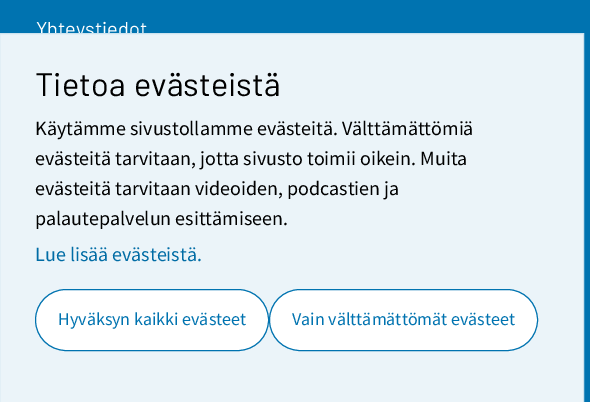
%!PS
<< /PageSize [590 402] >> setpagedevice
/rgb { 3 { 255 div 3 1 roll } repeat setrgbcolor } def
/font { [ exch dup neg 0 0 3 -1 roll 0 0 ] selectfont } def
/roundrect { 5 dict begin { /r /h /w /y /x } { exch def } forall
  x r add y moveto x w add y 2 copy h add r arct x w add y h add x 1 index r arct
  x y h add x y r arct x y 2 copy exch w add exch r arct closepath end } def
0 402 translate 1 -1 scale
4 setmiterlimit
0 115 176 rgb
0 0 590 402 rectfill
/Barlow-Regular 20 font
255 255 255 rgb
36 36 moveto (Yhteystiedot) show
235 244 249 rgb
-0.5 33.5 moveto 583.5 33.5 lineto 583.5 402.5 lineto -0.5 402.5 lineto closepath gsave fill grestore
204 227 239 rgb
stroke
/Barlow-Regular 32.5 font
0 0 0 rgb
35 96 moveto 2 0 32 (Tietoa evästeistä) widthshow
/SourceSansPro-Regular 20 font
[
  [(Käytämme sivustollamme evästeitä. Välttämättömiä) 35 135]
  [(evästeitä tarvitaan, jotta sivusto toimii oikein. Muita) 35 165]
  [(evästeitä tarvitaan videoiden, podcastien ja) 35 195]
  [(palautepalvelun esittämiseen.) 35 225]
] { aload pop moveto show } forall
0 108 165 rgb
35 261 moveto (Lue lisää evästeistä.) show
255 255 255 rgb
35.5 289.5 233 61 30.5 roundrect gsave fill grestore
0 115 176 rgb
stroke
/SourceSansPro-Regular 18 font
58 325 moveto (Hyväksyn kaikki evästeet) show
255 255 255 rgb
269.5 289.5 268 61 30.5 roundrect gsave fill grestore
0 115 176 rgb
stroke
292 325 moveto (Vain välttämättömät evästeet) show
showpage
